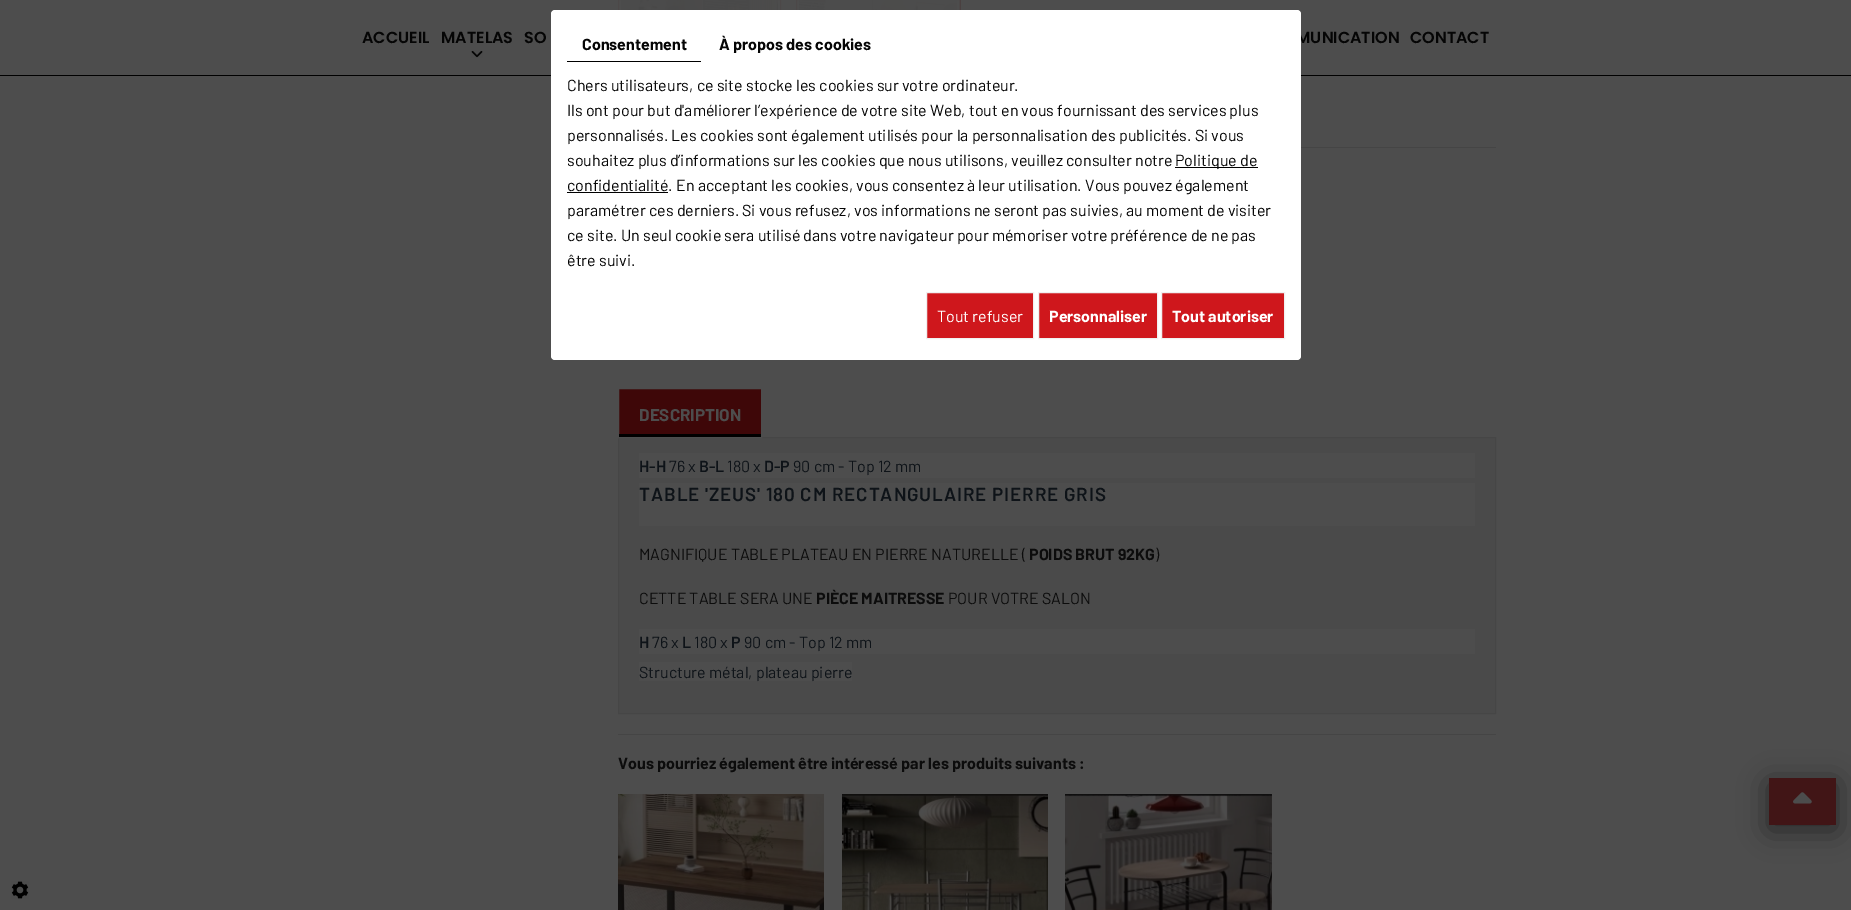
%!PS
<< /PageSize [1851 910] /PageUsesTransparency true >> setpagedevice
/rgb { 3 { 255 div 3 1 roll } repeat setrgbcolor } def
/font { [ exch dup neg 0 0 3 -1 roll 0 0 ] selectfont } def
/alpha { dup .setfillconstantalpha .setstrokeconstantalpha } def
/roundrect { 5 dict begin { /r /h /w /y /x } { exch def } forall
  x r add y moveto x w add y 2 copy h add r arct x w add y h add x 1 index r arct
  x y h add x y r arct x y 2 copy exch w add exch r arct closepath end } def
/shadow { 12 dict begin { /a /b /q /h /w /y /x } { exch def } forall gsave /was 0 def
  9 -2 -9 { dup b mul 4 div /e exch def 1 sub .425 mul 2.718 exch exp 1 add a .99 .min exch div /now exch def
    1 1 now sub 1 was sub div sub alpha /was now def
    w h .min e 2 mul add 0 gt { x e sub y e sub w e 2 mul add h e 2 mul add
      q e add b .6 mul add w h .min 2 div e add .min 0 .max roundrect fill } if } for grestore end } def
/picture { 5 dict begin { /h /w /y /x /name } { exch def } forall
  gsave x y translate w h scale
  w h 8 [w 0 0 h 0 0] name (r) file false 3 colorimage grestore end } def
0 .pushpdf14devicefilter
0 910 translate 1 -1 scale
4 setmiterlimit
77 77 77 rgb
0 0 1851 910 rectfill
66 28 29 rgb
618.5 -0.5 162 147 rectstroke
(img/2.rgb) 621 0 157 10 picture
796.5 -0.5 163 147 rectstroke
(img/3.rgb) 799 0 158 10 picture
0.9 alpha
77 77 77 rgb
618 0 342 75 rectfill
1 alpha
0 0 0 rgb
0 75 1851 1 rectfill
(img/1.rgb) 471 50 12 8 picture
69 69 69 rgb
1301 147 195 1 rectfill
62 7 8 rgb
619 389 142 45 rectfill
74 74 74 rgb
618.5 437.5 moveto 1495.5 437.5 lineto 1495.5 713.5 lineto 618.5 713.5 lineto closepath gsave fill grestore
70 70 70 rgb
stroke
77 77 77 rgb
618.5 388.5 143 49 rectstroke
[
  [619 434 142 3 0 0 0]
  [639 453 836 25 77 77 77]
  [639 483 836 43 77 77 77]
  [639 629 836 25 77 77 77]
  [639 662 213 19 77 77 77]
  [618 734 878 1 69 69 69]
] { aload pop rgb rectfill } forall
(img/4.rgb) 618 794 206 116 picture
(img/5.rgb) 842 794 206 116 picture
(img/6.rgb) 1065 794 207 116 picture
0 0 0 rgb
1769 783 67 47 0 15 0.5 shadow
65 21 22 rgb
1769 778 67 47 rectfill
(img/7.rgb) 1793 792 19 12 picture
(img/8.rgb) 11 881 18 18 picture
/Poppins-SemiBold 16 font
5 5 5 rgb
[
  [(ACCUEIL) 362 43]
  [(MATELAS) 441 43]
  [(SO) 524 43]
  [(MUNICATION) 1296 43]
  [(CONTACT) 1410 43]
] { aload pop moveto show } forall
255 255 255 rgb
551 10 750 350 4 roundrect fill
0 0 0 rgb
567 61 134 1 rectfill
/Barlow-Bold 16 font
5 5 5 rgb
582 50 moveto (Consentement) show
719 50 moveto (À propos des cookies) show
/Barlow-Regular 16 font
[
  [(Chers utilisateurs, ce site stocke les cookies sur votre ordinateur.) 567 91]
  [(Ils ont pour but d'améliorer l’expérience de votre site Web, tout en vous fournissant des services plus) 567 116]
  [(personnalisés. Les cookies sont également utilisés pour la personnalisation des publicités. Si vous) 567 141]
  [(souhaitez plus d’informations sur les cookies que nous utilisons, veuillez consulter notre) 567 166]
] { aload pop moveto show } forall
0 0 0 rgb
1175 167 83 1 rectfill
5 5 5 rgb
1175 166 moveto (Politique de) show
0 0 0 rgb
567 192 101 1 rectfill
5 5 5 rgb
[
  [(confidentialité. En acceptant les cookies, vous consentez à leur utilisation. Vous pouvez également) 567 191]
  [(paramétrer ces derniers. Si vous refusez, vos informations ne seront pas suivies, au moment de visiter) 567 216]
  [(ce site. Un seul cookie sera utilisé dans votre navigateur pour mémoriser votre préférence de ne pas) 567 241]
  [(être suivi.) 567 266]
] { aload pop moveto show } forall
207 23 28 rgb
926.5 292.5 moveto 1033.5 292.5 lineto 1033.5 338.5 lineto 926.5 338.5 lineto closepath gsave fill grestore
240 240 240 rgb
stroke
255 255 255 rgb
937 322 moveto (Tout refuser) show
207 23 28 rgb
1038.5 292.5 moveto 1157.5 292.5 lineto 1157.5 338.5 lineto 1038.5 338.5 lineto closepath gsave fill grestore
240 240 240 rgb
stroke
/Barlow-Bold 16 font
255 255 255 rgb
1049 322 moveto (Personnaliser) show
207 23 28 rgb
1161.5 292.5 moveto 1284.5 292.5 lineto 1284.5 338.5 lineto 1161.5 338.5 lineto closepath gsave fill grestore
240 240 240 rgb
stroke
255 255 255 rgb
1172 322 moveto (Tout autoriser) show
/Barlow-Bold 17 font
77 77 77 rgb
639 421 moveto (DESCRIPTION) show
/Barlow-SemiBold 16 font
14 19 24 rgb
639 472 moveto (H-H) show
/Barlow-Regular 16 font
669 472 moveto (76 x) show
/Barlow-SemiBold 16 font
699 472 moveto (B-L) show
/Barlow-Regular 16 font
727 472 moveto (180 x) show
/Barlow-SemiBold 16 font
764 472 moveto (D-P) show
/Barlow-Regular 16 font
793 472 moveto (90 cm - Top 12 mm) show
/Barlow-SemiBold 18.75 font
639 501 moveto 0.95 0 (TABLE 'ZEUS' 180 CM RECTANGULAIRE PIERRE GRIS) ashow
/Barlow-Regular 16 font
12 12 12 rgb
639 560 moveto (MAGNIFIQUE TABLE PLATEAU EN PIERRE NATURELLE \() show
/Barlow-Bold 16 font
1029 560 moveto (POIDS BRUT 92KG) show
/Barlow-Regular 16 font
1155 560 moveto (\)) show
639 604 moveto (CETTE TABLE SERA UNE) show
/Barlow-Bold 16 font
816 604 moveto (PIÈCE MAITRESSE) show
/Barlow-Regular 16 font
948 604 moveto (POUR VOTRE SALON) show
/Barlow-SemiBold 16 font
14 19 24 rgb
639 648 moveto (H) show
/Barlow-Regular 16 font
652 648 moveto (76 x) show
/Barlow-SemiBold 16 font
682 648 moveto (L) show
/Barlow-Regular 16 font
694 648 moveto (180 x) show
/Barlow-SemiBold 16 font
731 648 moveto (P) show
/Barlow-Regular 16 font
744 648 moveto (90 cm - Top 12 mm) show
639 678 moveto (Structure métal, plateau pierre) show
/Barlow-Bold 16 font
12 12 12 rgb
618 769 moveto (Vous pourriez également être intéressé par les produits suivants :) show
.poppdf14devicefilter showpage
